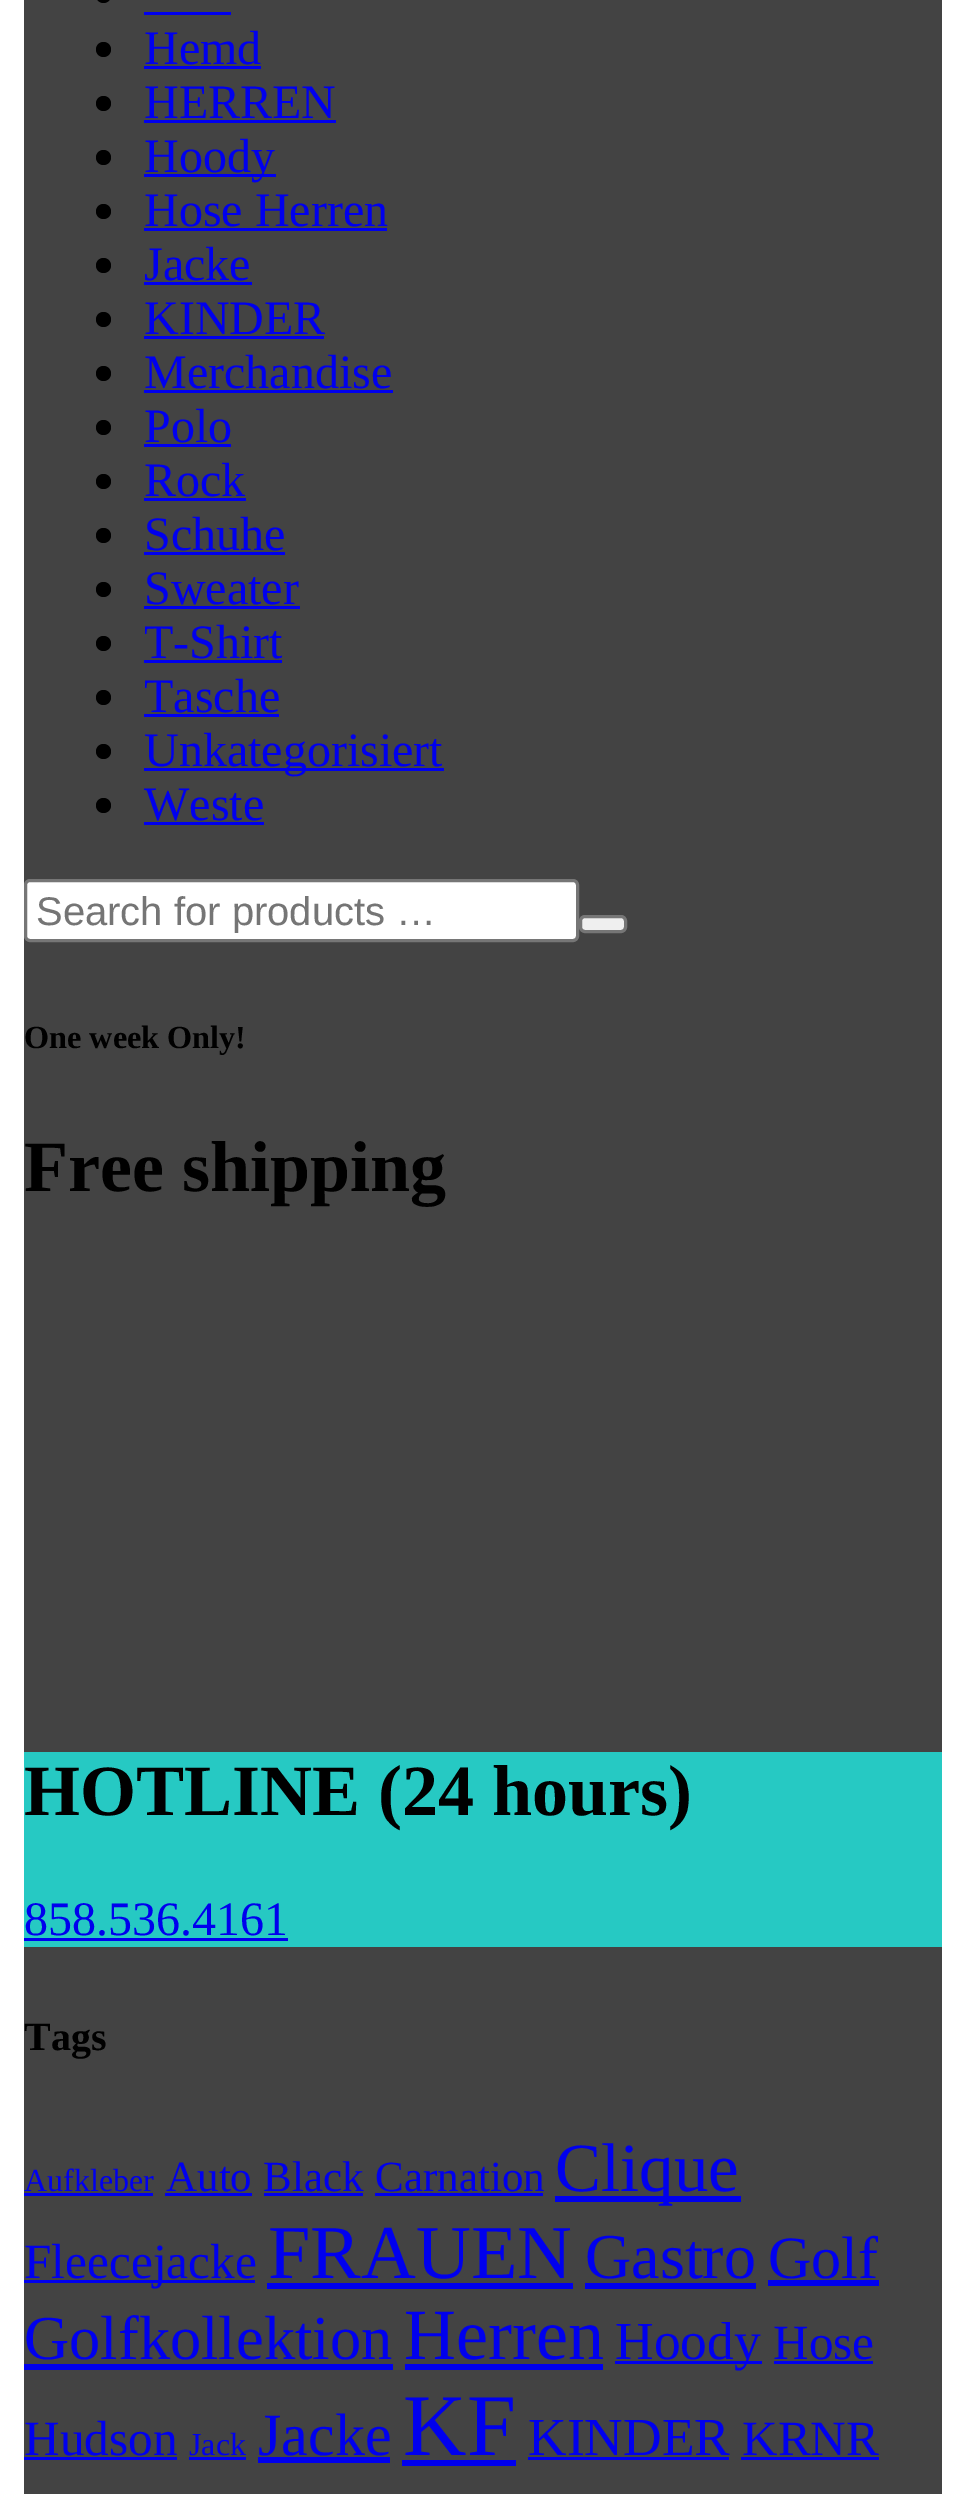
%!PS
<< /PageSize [965 2494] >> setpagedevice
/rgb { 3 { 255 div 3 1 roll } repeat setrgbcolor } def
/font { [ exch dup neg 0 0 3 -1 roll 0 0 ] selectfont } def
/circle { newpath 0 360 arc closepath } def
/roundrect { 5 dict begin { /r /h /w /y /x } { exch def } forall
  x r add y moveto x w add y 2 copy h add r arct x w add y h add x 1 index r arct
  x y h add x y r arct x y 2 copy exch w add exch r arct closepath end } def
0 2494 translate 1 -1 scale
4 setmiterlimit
255 255 255 rgb
0 0 965 2494 rectfill
67 67 67 rgb
24 0 918 2494 rectfill
0 0 0 rgb
96 -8 15 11 7.5 roundrect fill
0 0 238 rgb
144 12 87 3 rectfill
0 0 0 rgb
103.5 49.5 7.5 circle fill
0 0 238 rgb
144 66 117 3 rectfill
0 0 0 rgb
103.5 103.5 7.5 circle fill
0 0 238 rgb
144 120 192 3 rectfill
0 0 0 rgb
103.5 157.5 7.5 circle fill
0 0 238 rgb
144 174 132 3 rectfill
0 0 0 rgb
103.5 211.5 7.5 circle fill
0 0 238 rgb
144 228 243 3 rectfill
0 0 0 rgb
103.5 265.5 7.5 circle fill
0 0 238 rgb
144 282 108 3 rectfill
0 0 0 rgb
103.5 319.5 7.5 circle fill
0 0 238 rgb
144 336 180 3 rectfill
0 0 0 rgb
103.5 373.5 7.5 circle fill
0 0 238 rgb
144 390 249 3 rectfill
0 0 0 rgb
103.5 427.5 7.5 circle fill
0 0 238 rgb
144 444 87 3 rectfill
0 0 0 rgb
103.5 481.5 7.5 circle fill
0 0 238 rgb
144 498 102 3 rectfill
0 0 0 rgb
103.5 535.5 7.5 circle fill
0 0 238 rgb
144 552 141 3 rectfill
0 0 0 rgb
103.5 589.5 7.5 circle fill
0 0 238 rgb
144 606 156 3 rectfill
0 0 0 rgb
103.5 643.5 7.5 circle fill
0 0 238 rgb
144 660 138 3 rectfill
0 0 0 rgb
103.5 697.5 7.5 circle fill
0 0 238 rgb
144 714 135 3 rectfill
0 0 0 rgb
103.5 751.5 7.5 circle fill
0 0 238 rgb
144 768 300 3 rectfill
0 0 0 rgb
103.5 805.5 7.5 circle fill
0 0 238 rgb
144 822 120 3 rectfill
255 255 255 rgb
25.5 880.5 552 60 4.5 roundrect gsave fill grestore
118 118 118 rgb
3 setlinewidth
stroke
239 239 239 rgb
580.5 916.5 45 15 4.5 roundrect gsave fill grestore
118 118 118 rgb
stroke
[
  [24 1752 918 195 38 201 195]
  [24 1938 264 3 0 0 238]
  [24 2193 129 3 0 0 238]
  [165 2193 87 3 0 0 238]
  [264 2193 99 3 0 0 238]
  [375 2193 168 3 0 0 238]
  [555 2196 186 6 0 0 238]
  [24 2280 231 3 0 0 238]
  [267 2283 306 6 0 0 238]
  [585 2283 171 6 0 0 238]
  [768 2280 111 6 0 0 238]
  [24 2364 369 6 0 0 238]
  [405 2364 198 6 0 0 238]
  [615 2361 147 3 0 0 238]
  [774 2361 99 3 0 0 238]
  [24 2457 153 3 0 0 238]
  [189 2457 57 3 0 0 238]
  [258 2457 132 6 0 0 238]
  [402 2460 114 6 0 0 238]
  [528 2457 201 3 0 0 238]
  [741 2457 138 3 0 0 238]
] { aload pop rgb rectfill } forall
/LiberationSerif-Regular 48 font
[
  [(Hemd) 144 64]
  [(HERREN) 144 118]
  [(Hoody) 144 172]
  [(Hose Herren) 144 226]
  [(Jacke) 144 280]
  [(KINDER) 144 334]
  [(Merchandise) 144 388]
  [(Polo) 144 442]
  [(Rock) 144 496]
  [(Schuhe) 144 550]
  [(Sweater) 144 604]
  [(T-Shirt) 144 658]
  [(Tasche) 144 712]
  [(Unkategorisiert) 144 766]
  [(Weste) 144 820]
] { aload pop moveto show } forall
gsave
36 888 531 45 rectclip
/LiberationSans-Regular 40 font
117 117 117 rgb
36 925 moveto (Search for products …) show
grestore
/LiberationSerif-Bold 32.25 font
0 0 0 rgb
24 1048 moveto (One week Only!) show
/LiberationSerif-Bold 72 font
24 1191 moveto (Free shipping) show
24 1815 moveto (HOTLINE \(24 hours\)) show
/LiberationSerif-Regular 48 font
0 0 238 rgb
24 1935 moveto (858.536.4161) show
/LiberationSerif-Bold 40 font
0 0 0 rgb
24 2050 moveto (Tags) show
/LiberationSerif-Regular 32 font
0 0 238 rgb
24 2191 moveto (Aufkleber) show
/LiberationSerif-Regular 43 font
[
  [(Auto) 166 2191]
  [(Black) 263 2191]
  [(Carnation) 375 2191]
] { aload pop moveto show } forall
/LiberationSerif-Regular 69 font
555 2191 moveto (Clique) show
/LiberationSerif-Regular 49.25 font
24 2278 moveto (Fleecejacke) show
/LiberationSerif-Regular 76 font
268 2278 moveto (FRAUEN) show
/LiberationSerif-Regular 64 font
585 2278 moveto (Gastro) show
/LiberationSerif-Regular 60 font
768 2278 moveto (Golf) show
/LiberationSerif-Regular 62.5 font
24 2359 moveto (Golfkollektion) show
/LiberationSerif-Regular 72 font
404 2359 moveto (Herren) show
/LiberationSerif-Regular 53.5 font
615 2359 moveto (Hoody) show
/LiberationSerif-Regular 49.25 font
773 2359 moveto (Hose) show
24 2455 moveto (Hudson) show
/LiberationSerif-Regular 32 font
189 2455 moveto (Jack) show
/LiberationSerif-Regular 60 font
258 2455 moveto (Jacke) show
/LiberationSerif-Regular 88 font
403 2455 moveto (KF) show
/LiberationSerif-Regular 53.5 font
528 2455 moveto (KINDER) show
/LiberationSerif-Regular 49.25 font
742 2455 moveto (KRNR) show
showpage
